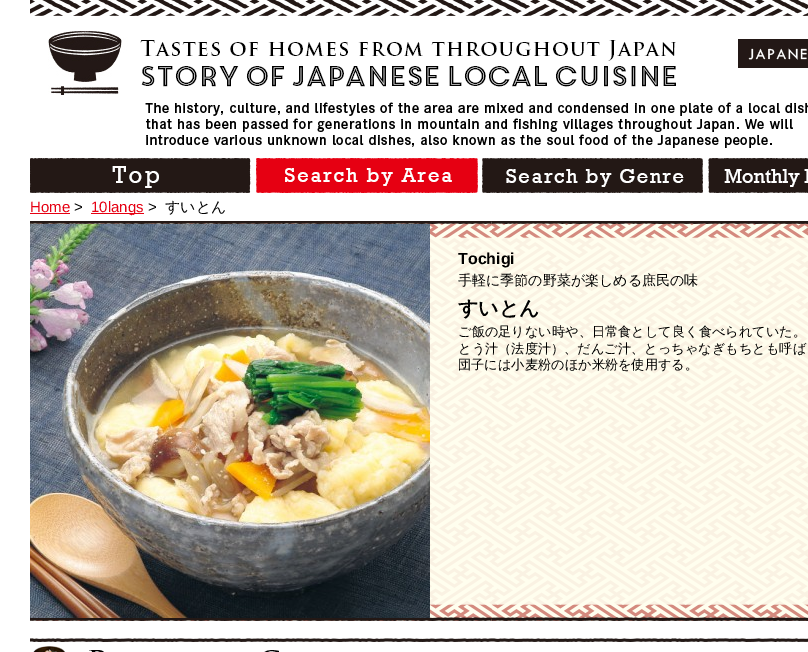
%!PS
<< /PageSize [808 652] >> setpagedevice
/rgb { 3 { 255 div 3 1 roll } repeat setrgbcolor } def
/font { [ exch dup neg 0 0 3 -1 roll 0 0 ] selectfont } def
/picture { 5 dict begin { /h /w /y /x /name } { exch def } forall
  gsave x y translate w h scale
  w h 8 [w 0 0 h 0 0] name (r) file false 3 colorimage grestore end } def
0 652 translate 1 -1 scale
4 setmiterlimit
255 255 255 rgb
0 0 808 652 rectfill
(img/1.rgb) 30 0 778 16 picture
(img/2.rgb) 48 31 628 64 picture
35 24 22 rgb
738 39 70 29 rectfill
(img/3.rgb) 748 48 59 12 picture
(img/4.rgb) 145 102 663 46 picture
(img/5.rgb) 30 158 221 35 picture
(img/6.rgb) 256 158 222 35 picture
(img/7.rgb) 482 158 221 35 picture
(img/8.rgb) 708 158 100 35 picture
230 0 18 rgb
30 213 40 1 rectfill
91 213 53 1 rectfill
(img/9.rgb) 30 221 778 400 picture
(img/10.rgb) 30 224 400 394 picture
(img/11.rgb) 30 638 778 14 picture
/LiberationSans-Regular 15 font
30 212 moveto (Home) show
0 0 0 rgb
74 212 moveto (>) show
230 0 18 rgb
91 212 moveto (10langs) show
0 0 0 rgb
148 212 moveto (>) show
/WenQuanYiZenHei-Medium 15 font
165 212 moveto (すいとん) show
/LiberationSans-Bold 16 font
458 264 moveto (Tochigi) show
/WenQuanYiZenHei-Medium 14 font
458 285 moveto (手軽に季節の野菜が楽しめる庶民の味) show
/WenQuanYiZenHei-Bold 20 font
458 315 moveto (すいとん) show
/WenQuanYiZenHei-Medium 13.2 font
[
  [(ご飯の足りない時や、日常食として良く食べられていた。) 458 336]
  [(とう汁（法度汁）、だんご汁、とっちゃなぎもちとも呼ば) 458 353]
  [(団子には小麦粉のほか米粉を使用する。) 458 369]
] { aload pop moveto show } forall
showpage
